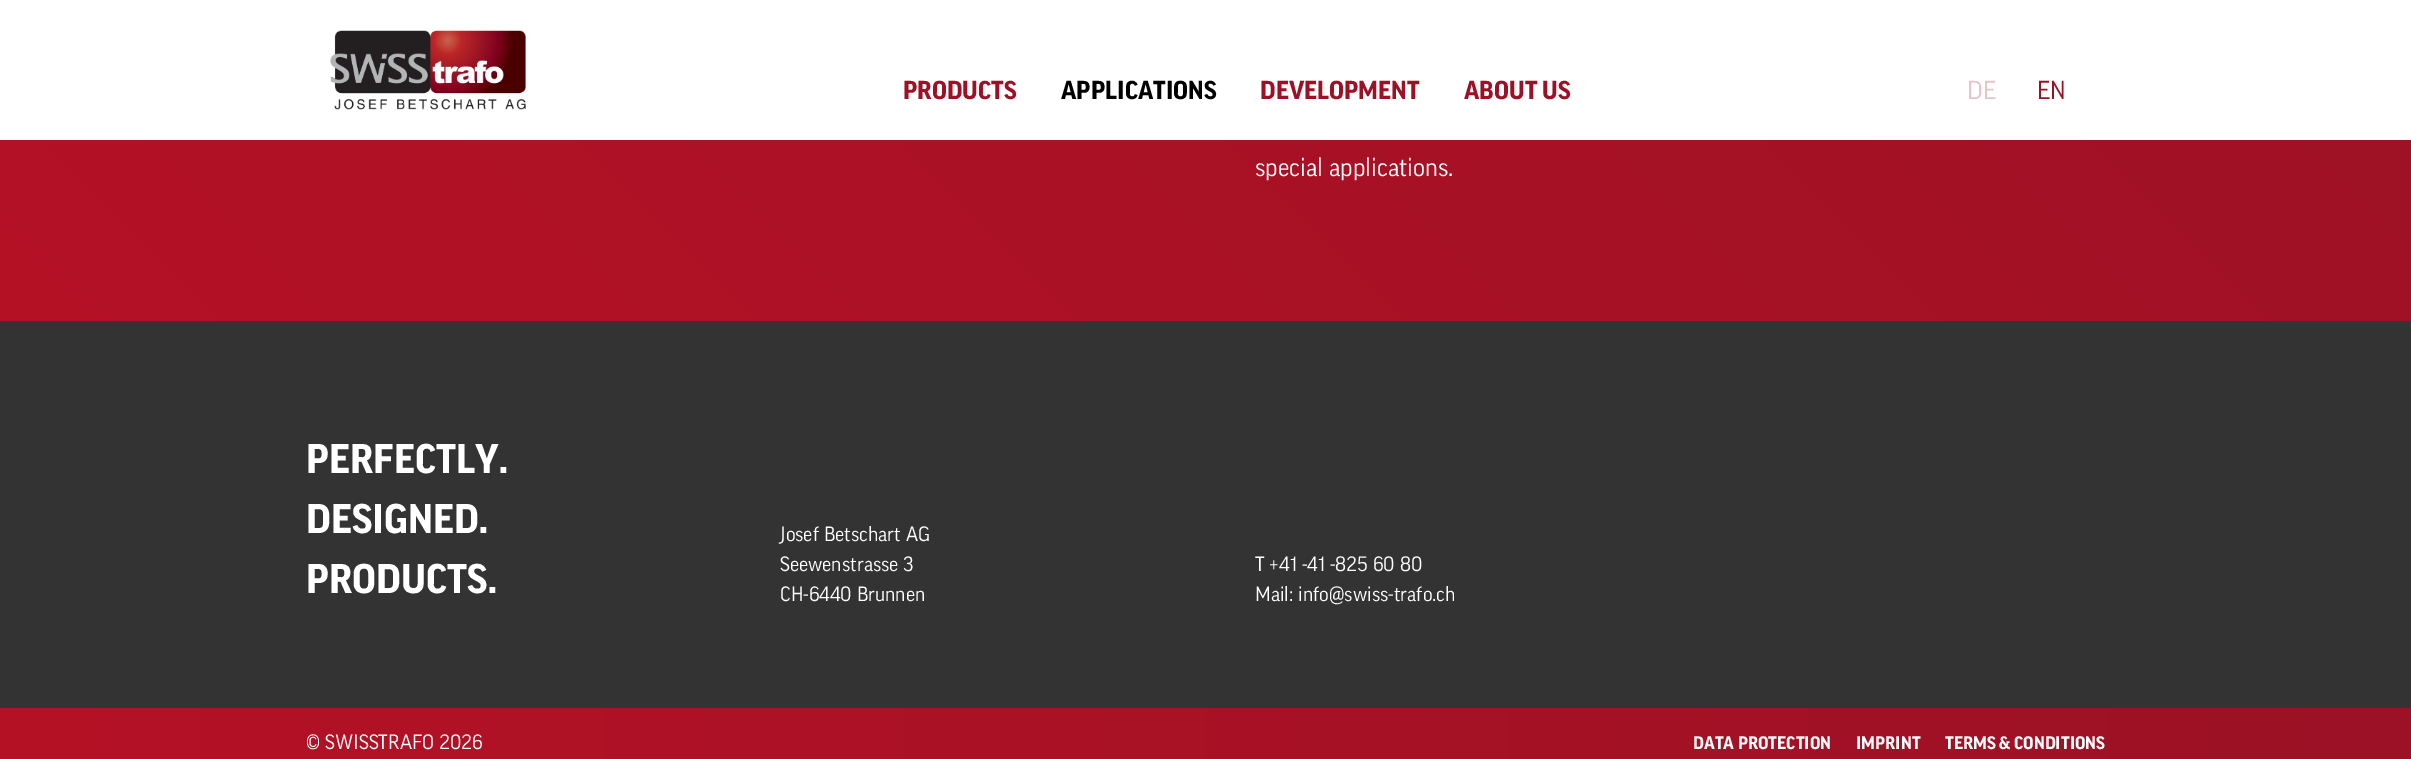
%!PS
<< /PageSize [2411 759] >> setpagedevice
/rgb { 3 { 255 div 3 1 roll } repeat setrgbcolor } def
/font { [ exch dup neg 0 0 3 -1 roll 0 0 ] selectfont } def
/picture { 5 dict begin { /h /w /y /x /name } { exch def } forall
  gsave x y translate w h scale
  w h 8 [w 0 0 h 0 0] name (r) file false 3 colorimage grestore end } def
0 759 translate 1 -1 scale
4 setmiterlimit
51 51 51 rgb
0 0 2411 759 rectfill
255 255 255 rgb
0 0 2411 140 rectfill
(img/1.rgb) 330 30 196 80 picture
gsave 0 140 moveto 2411 140 lineto 2411 321 lineto 0 321 lineto closepath clip newpath
<< /ShadingType 2 /ColorSpace /DeviceRGB /Coords [464 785 1947 -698] /Extend [true true] /Function << /FunctionType 2 /Domain [0 1] /C0 [0.71 0.067 0.145] /C1 [0.612 0.067 0.145] /N 1 >> >> shfill grestore
gsave 0 708 moveto 2411 708 lineto 2411 759 lineto 0 759 lineto closepath clip newpath
<< /ShadingType 2 /ColorSpace /DeviceRGB /Coords [0 741 2411 741] /Extend [true true] /Function << /FunctionType 2 /Domain [0 1] /C0 [0.71 0.067 0.145] /C1 [0.612 0.067 0.145] /N 1 >> >> shfill grestore
/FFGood-Bold 25 font
156 17 37 rgb
903 99 moveto (PRODUCTS) show
0 0 0 rgb
1061 99 moveto (APPLICATIONS) show
156 17 37 rgb
1260 99 moveto (DEVELOPMENT) show
1464 99 moveto (ABOUT US) show
/FFGood-Regular 25 font
230 196 201 rgb
1967 99 moveto (DE) show
156 17 37 rgb
2037 99 moveto (EN) show
255 255 255 rgb
1255 176 moveto (special applications.) show
/FFGood-Bold 40 font
[
  [(PERFECTLY.) 306 473]
  [(DESIGNED.) 306 533]
  [(PRODUCTS.) 306 593]
] { aload pop moveto show } forall
/FFGood-Regular 20 font
[
  [(Josef Betschart AG) 780 541]
  [(Seewenstrasse 3) 780 571]
  [(CH-6440 Brunnen) 780 601]
  [(T +41 -41 -825 60 80) 1255 571]
  [(Mail: info@swiss-trafo.ch) 1255 601]
  [(© SWISSTRAFO 2026) 306 749]
] { aload pop moveto show } forall
/FFGood-Bold 17.5 font
[
  [(DATA PROTECTION) 1693 749]
  [(IMPRINT) 1856 749]
  [(TERMS & CONDITIONS) 1945 749]
] { aload pop moveto show } forall
showpage
